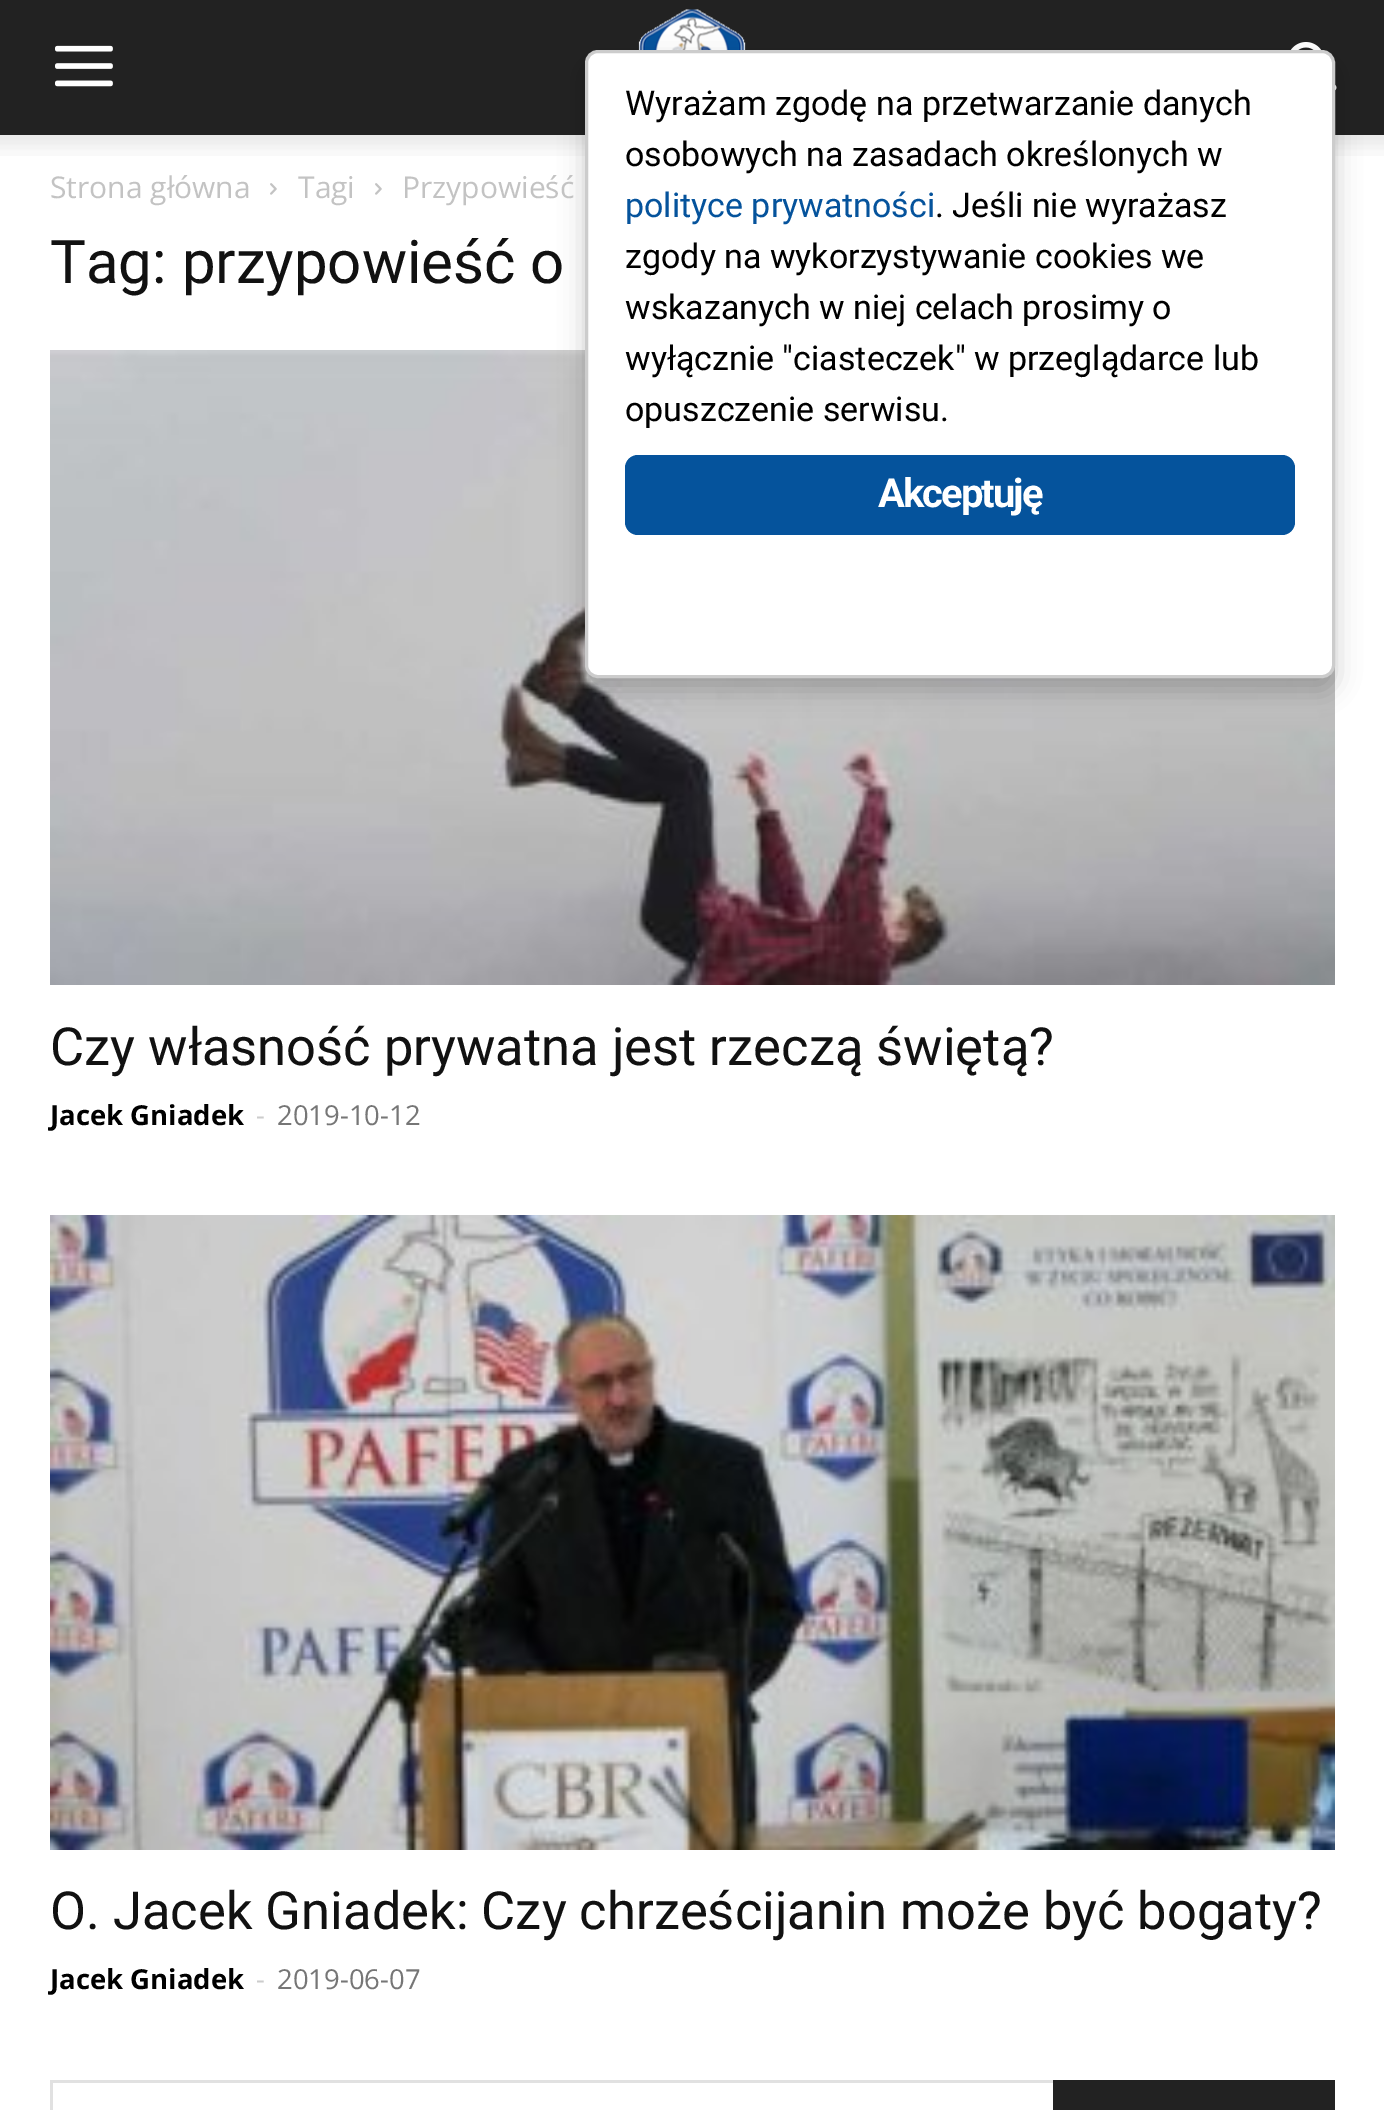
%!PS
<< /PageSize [1384 2110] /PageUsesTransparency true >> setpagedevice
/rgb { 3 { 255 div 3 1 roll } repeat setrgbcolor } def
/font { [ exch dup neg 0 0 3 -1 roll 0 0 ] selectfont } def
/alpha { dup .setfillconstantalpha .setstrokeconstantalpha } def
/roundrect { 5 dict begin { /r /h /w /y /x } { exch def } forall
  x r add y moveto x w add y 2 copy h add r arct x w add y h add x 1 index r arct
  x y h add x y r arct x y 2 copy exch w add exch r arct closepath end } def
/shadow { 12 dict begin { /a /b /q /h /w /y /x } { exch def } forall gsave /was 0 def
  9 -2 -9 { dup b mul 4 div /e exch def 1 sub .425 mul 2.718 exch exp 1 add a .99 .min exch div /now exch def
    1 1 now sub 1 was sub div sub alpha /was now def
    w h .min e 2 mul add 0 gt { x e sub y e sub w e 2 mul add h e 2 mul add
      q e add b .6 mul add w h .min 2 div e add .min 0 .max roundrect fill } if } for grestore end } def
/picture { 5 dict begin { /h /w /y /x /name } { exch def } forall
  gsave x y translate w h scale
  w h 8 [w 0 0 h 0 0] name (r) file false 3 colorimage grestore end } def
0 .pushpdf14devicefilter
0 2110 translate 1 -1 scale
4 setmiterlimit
255 255 255 rgb
0 0 1384 2110 rectfill
34 34 34 rgb
0 0 1384 135 rectfill
(img/1.rgb) 638 9 108 41 picture
(img/3.rgb) 1290 42 47 49 picture
(img/4.rgb) 0 135 1384 21 picture
(img/6.rgb) 50 350 1285 635 picture
0 0 0 rgb
585 63 750 627 13 12.5 0.2 shadow
255 255 255 rgb
586.5 51.5 747 625 11.5 roundrect gsave fill grestore
204 204 204 rgb
3 setlinewidth
stroke
5 83 156 rgb
625 455 670 80 13 roundrect fill
(img/2.rgb) 55 45 58 42 picture
(img/5.rgb) 270 183 7 12 picture
(img/5.rgb) 375 183 7 12 picture
(img/7.rgb) 50 1215 1285 635 picture
[
  [50 2080 1003 3 225 225 225]
  [50 2080 3 30 225 225 225]
  [1053 2080 282 30 34 34 34]
] { aload pop rgb rectfill } forall
/Roboto-Regular 34 font
0 0 0 rgb
625 115 moveto (Wyrażam zgodę na przetwarzanie danych) show
625 166 moveto (osobowych na zasadach określonych w) show
5 83 156 rgb
625 217 moveto (polityce prywatności) show
0 0 0 rgb
[
  [(. Jeśli nie wyrażasz) 935 217]
  [(zgody na wykorzystywanie cookies we) 625 268]
  [(wskazanych w niej celach prosimy o) 625 319]
  [(wyłącznie "ciasteczek" w przeglądarce lub) 625 370]
  [(opuszczenie serwisu.) 625 421]
] { aload pop moveto show } forall
/Roboto-Bold 40 font
255 255 255 rgb
878 507 moveto -2 0 (Akceptuję) ashow
/OpenSans-Regular 30 font
195 195 195 rgb
[
  [(Strona główna) 50 198]
  [(Tagi) 298 198]
  [(Przypowieść) 402 198]
] { aload pop moveto show } forall
/Roboto-Regular 60 font
17 17 17 rgb
50 283 moveto (Tag: przypowieść o) show
/Roboto-Regular 52.5 font
50 1065 moveto (Czy własność prywatna jest rzeczą świętą?) show
/OpenSans-Bold 27.5 font
0 0 0 rgb
50 1125 moveto (Jacek Gniadek) show
/OpenSans-Regular 27.5 font
204 204 204 rgb
256 1125 moveto (-) show
118 118 118 rgb
277 1125 moveto (2019-10-12) show
/Roboto-Regular 52.5 font
17 17 17 rgb
50 1929 moveto (O. Jacek Gniadek: Czy chrześcijanin może być bogaty?) show
/OpenSans-Bold 27.5 font
0 0 0 rgb
50 1989 moveto (Jacek Gniadek) show
/OpenSans-Regular 27.5 font
204 204 204 rgb
256 1989 moveto (-) show
118 118 118 rgb
277 1989 moveto (2019-06-07) show
.poppdf14devicefilter showpage
